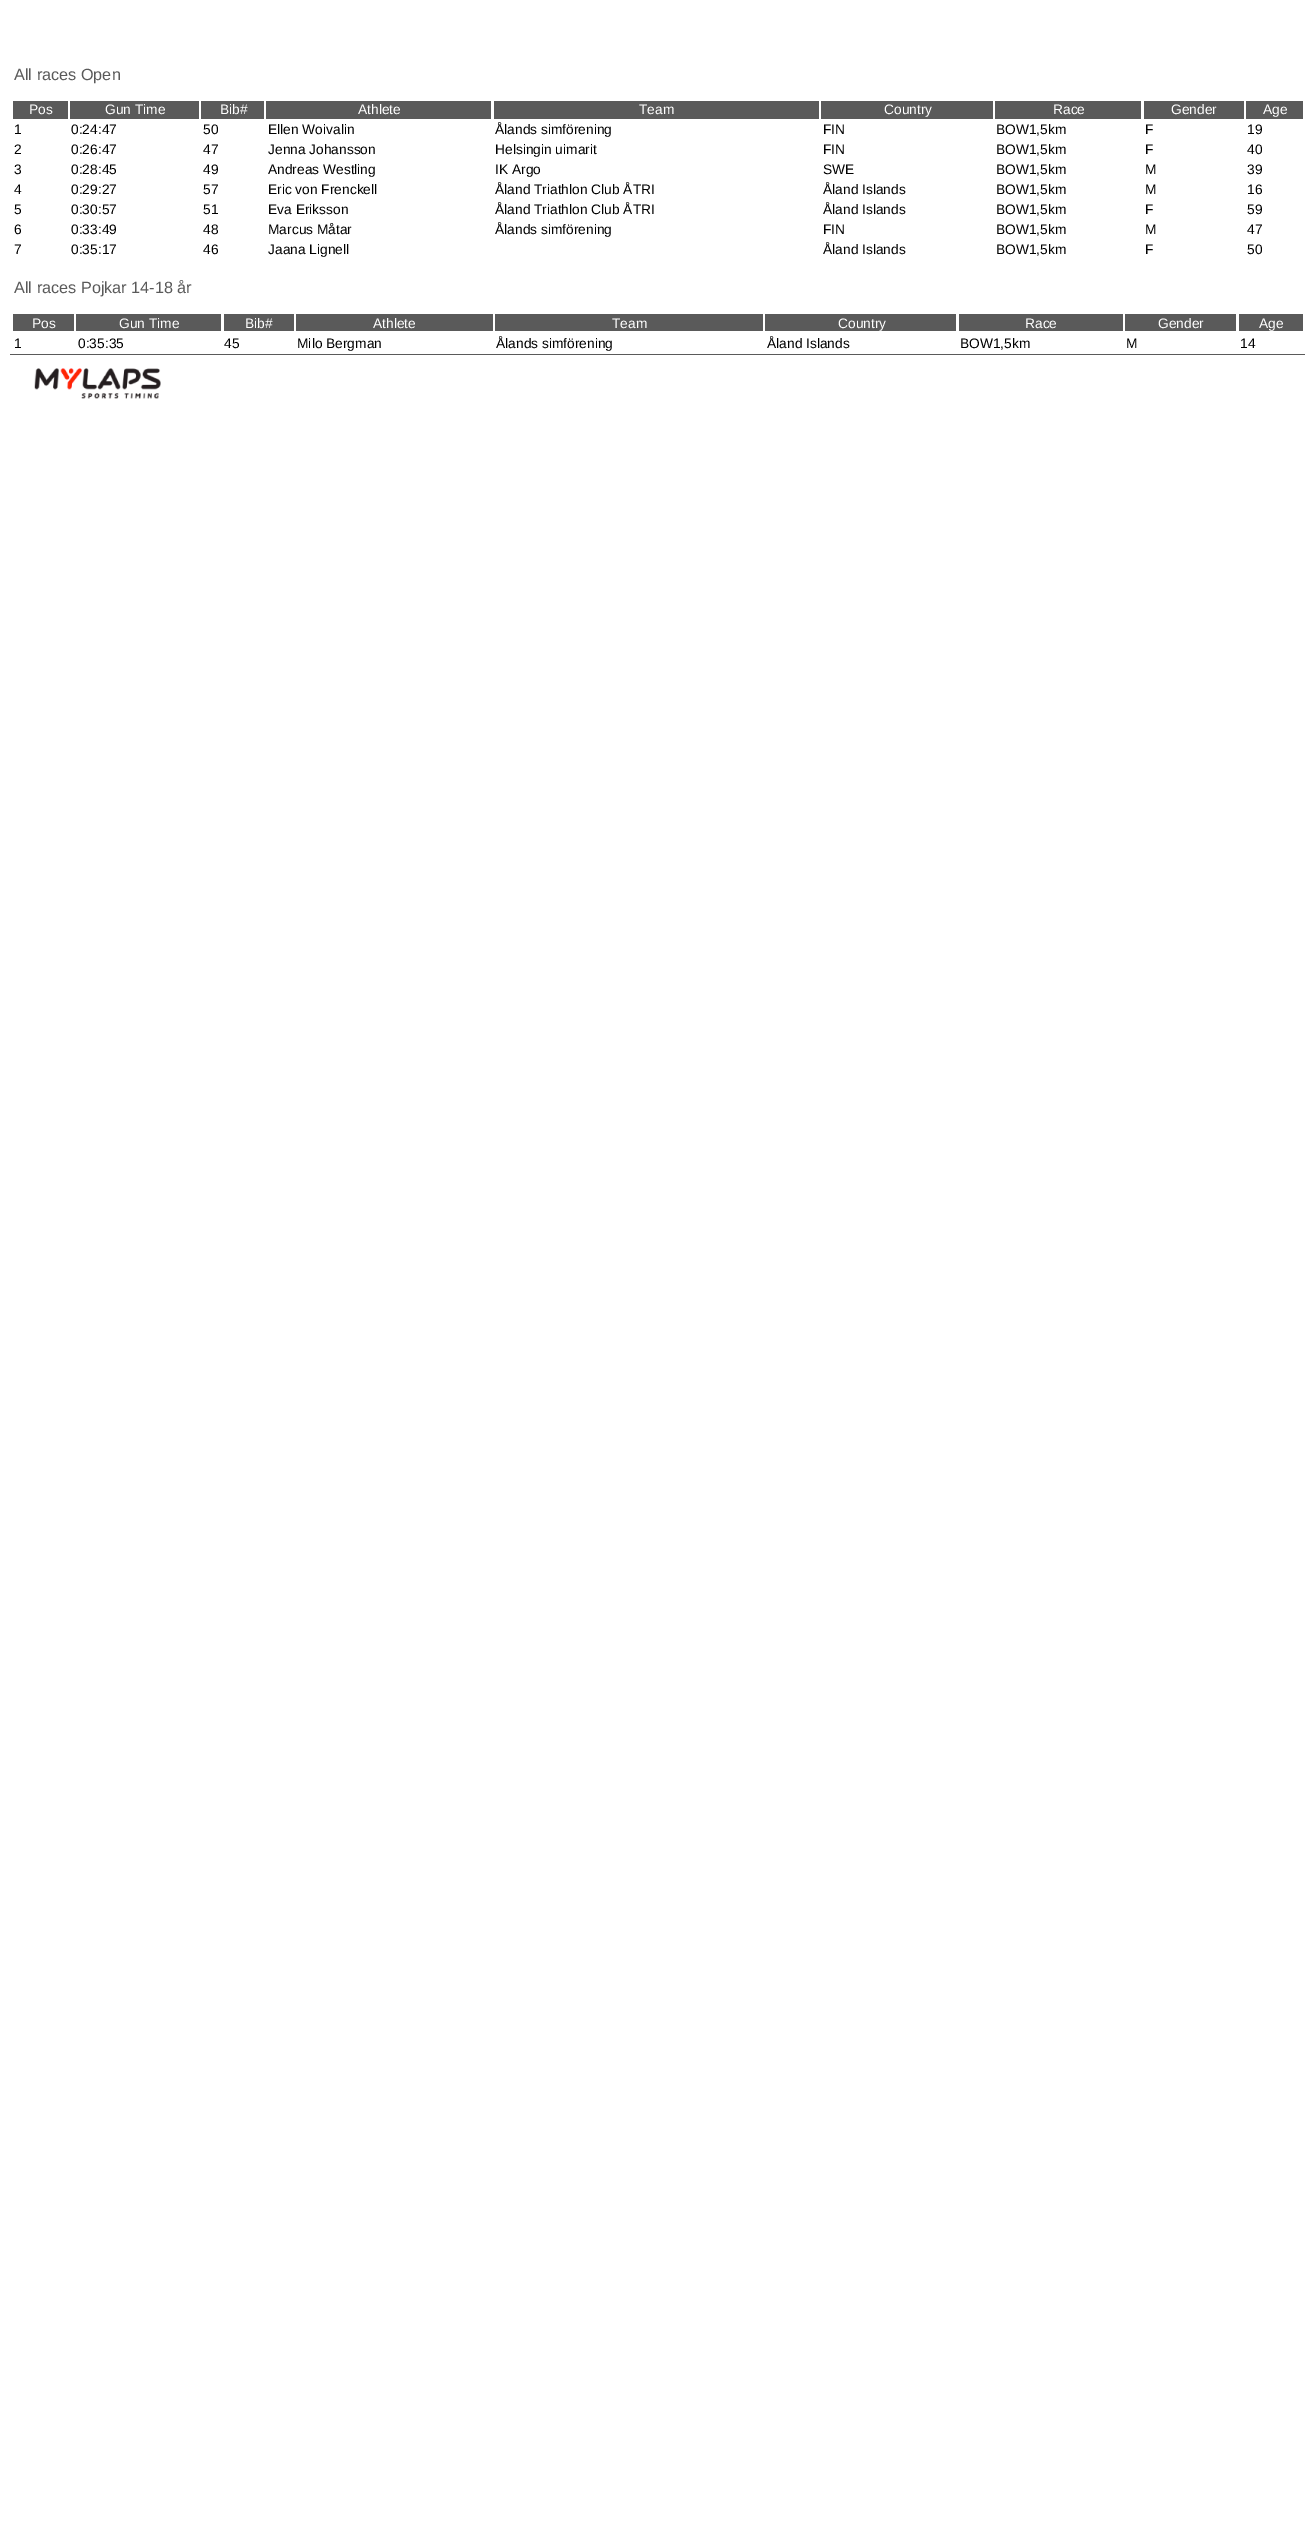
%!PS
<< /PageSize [1315 2545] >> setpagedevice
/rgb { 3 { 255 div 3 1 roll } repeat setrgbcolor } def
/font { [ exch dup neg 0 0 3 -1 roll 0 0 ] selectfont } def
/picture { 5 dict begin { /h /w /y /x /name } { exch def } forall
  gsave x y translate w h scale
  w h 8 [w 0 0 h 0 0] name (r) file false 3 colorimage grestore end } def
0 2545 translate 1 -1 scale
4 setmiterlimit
255 255 255 rgb
0 0 1315 2545 rectfill
[
  [13 101 55 18 90 90 90]
  [70 101 129 18 90 90 90]
  [201 101 63 18 90 90 90]
  [266 101 225 18 90 90 90]
  [494 101 325 18 90 90 90]
  [821 101 172 18 90 90 90]
  [995 101 146 18 90 90 90]
  [1144 101 100 18 90 90 90]
  [1246 101 57 18 90 90 90]
  [13 314 61 17 90 90 90]
  [76 314 145 17 90 90 90]
  [224 314 70 17 90 90 90]
  [296 314 197 17 90 90 90]
  [495 314 268 17 90 90 90]
  [765 314 191 17 90 90 90]
  [959 314 164 17 90 90 90]
  [1125 314 111 17 90 90 90]
  [1239 314 64 17 90 90 90]
  [10 354 1295 1 90 90 90]
] { aload pop rgb rectfill } forall
(img/1.rgb) 34 368 127 31 picture
/LiberationSans-Regular 16.25 font
14 80 moveto (All races Open) show
/LiberationSans-Regular 13.75 font
255 255 255 rgb
[
  [(Pos) 29 114]
  [(Gun Time) 105 114]
  [(Bib#) 220 114]
  [(Athlete) 358 114]
  [(Team) 639 114]
  [(Country) 884 114]
  [(Race) 1053 114]
  [(Gender) 1171 114]
  [(Age) 1263 114]
] { aload pop moveto show } forall
0 0 0 rgb
[
  [(1) 14 134]
  [(0:24:47) 71 134]
  [(50) 203 134]
  [(Ellen Woivalin) 268 134]
  [(Ålands simförening) 495 134]
  [(FIN) 823 134]
  [(BOW1,5km) 996 134]
  [(F) 1145 134]
  [(19) 1247 134]
  [(2) 14 154]
  [(0:26:47) 71 154]
  [(47) 203 154]
  [(Jenna Johansson) 268 154]
  [(Helsingin uimarit) 495 154]
  [(FIN) 823 154]
  [(BOW1,5km) 996 154]
  [(F) 1145 154]
  [(40) 1247 154]
  [(3) 14 174]
  [(0:28:45) 71 174]
  [(49) 203 174]
  [(Andreas Westling) 268 174]
  [(IK Argo) 495 174]
  [(SWE) 823 174]
  [(BOW1,5km) 996 174]
  [(M) 1145 174]
  [(39) 1247 174]
  [(4) 14 194]
  [(0:29:27) 71 194]
  [(57) 203 194]
  [(Eric von Frenckell) 268 194]
  [(Åland Triathlon Club ÅTRI) 495 194]
  [(Åland Islands) 823 194]
  [(BOW1,5km) 996 194]
  [(M) 1145 194]
  [(16) 1247 194]
  [(5) 14 214]
  [(0:30:57) 71 214]
  [(51) 203 214]
  [(Eva Eriksson) 268 214]
  [(Åland Triathlon Club ÅTRI) 495 214]
  [(Åland Islands) 823 214]
  [(BOW1,5km) 996 214]
  [(F) 1145 214]
  [(59) 1247 214]
  [(6) 14 234]
  [(0:33:49) 71 234]
  [(48) 203 234]
  [(Marcus Måtar) 268 234]
  [(Ålands simförening) 495 234]
  [(FIN) 823 234]
  [(BOW1,5km) 996 234]
  [(M) 1145 234]
  [(47) 1247 234]
  [(7) 14 254]
  [(0:35:17) 71 254]
  [(46) 203 254]
  [(Jaana Lignell) 268 254]
  [(Åland Islands) 823 254]
  [(BOW1,5km) 996 254]
  [(F) 1145 254]
  [(50) 1247 254]
] { aload pop moveto show } forall
/LiberationSans-Regular 16.25 font
90 90 90 rgb
14 293 moveto (All races Pojkar 14-18 år) show
/LiberationSans-Regular 13.75 font
255 255 255 rgb
[
  [(Pos) 32 328]
  [(Gun Time) 119 328]
  [(Bib#) 245 328]
  [(Athlete) 373 328]
  [(Team) 612 328]
  [(Country) 838 328]
  [(Race) 1025 328]
  [(Gender) 1158 328]
  [(Age) 1259 328]
] { aload pop moveto show } forall
0 0 0 rgb
[
  [(1) 14 348]
  [(0:35:35) 78 348]
  [(45) 224 348]
  [(Milo Bergman) 297 348]
  [(Ålands simförening) 496 348]
  [(Åland Islands) 767 348]
  [(BOW1,5km) 960 348]
  [(M) 1126 348]
  [(14) 1240 348]
] { aload pop moveto show } forall
showpage
